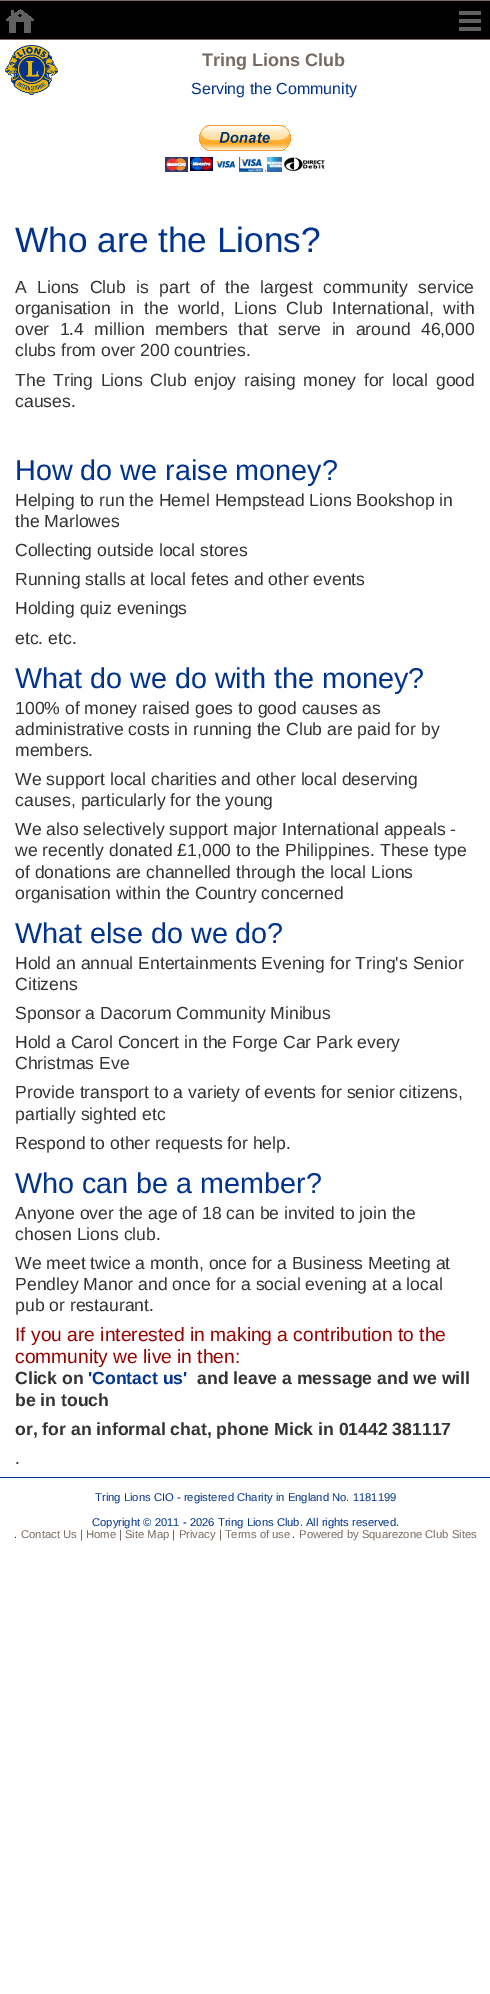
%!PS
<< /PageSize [490 1994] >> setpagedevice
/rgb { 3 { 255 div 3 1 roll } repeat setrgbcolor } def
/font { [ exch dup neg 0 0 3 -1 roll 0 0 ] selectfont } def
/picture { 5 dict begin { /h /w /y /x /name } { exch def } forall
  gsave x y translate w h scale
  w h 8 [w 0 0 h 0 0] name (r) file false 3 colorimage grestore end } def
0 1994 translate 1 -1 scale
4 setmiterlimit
255 255 255 rgb
0 0 490 1994 rectfill
[
  [0 1 490 38 0 0 0]
  [0 0 490 1 118 106 98]
  [0 39 490 1 118 106 98]
] { aload pop rgb rectfill } forall
(img/1.rgb) 6 9 28 24 picture
(img/2.rgb) 459 11 22 20 picture
(img/3.rgb) 5 45 53 50 picture
(img/4.rgb) 165 125 160 47 picture
0 51 141 rgb
0 1477 490 1 rectfill
/LiberationSans-Bold 18 font
118 106 98 rgb
202 66 moveto (Tring Lions Club) show
/LiberationSans-Regular 16 font
0 51 141 rgb
191 94 moveto (Serving the Community) show
/LiberationSans-Regular 35.25 font
15 252 moveto (Who are the Lions?) show
/LiberationSans-Regular 17.6 font
51 51 51 rgb
15 293 moveto 5.5 0 32 (A Lions Club is part of the largest community service) widthshow
15 314 moveto 4.75 0 32 (organisation in the world, Lions Club International, with) widthshow
15 335 moveto 5.5 0 32 (over 1.4 million members that serve in around 46,000) widthshow
15 356 moveto (clubs from over 200 countries.) show
15 386 moveto 2.75 0 32 (The Tring Lions Club enjoy raising money for local good) widthshow
15 407 moveto (causes.) show
/LiberationSans-Regular 28.75 font
0 51 141 rgb
15 480 moveto (How do we raise money?) show
/LiberationSans-Regular 17.6 font
51 51 51 rgb
[
  [(Helping to run the Hemel Hempstead Lions Bookshop in) 15 506]
  [(the Marlowes) 15 527]
  [(Collecting outside local stores) 15 556]
  [(Running stalls at local fetes and other events) 15 585]
  [(Holding quiz evenings) 15 614]
  [(etc. etc.) 15 644]
] { aload pop moveto show } forall
/LiberationSans-Regular 28.75 font
0 51 141 rgb
15 688 moveto (What do we do with the money?) show
/LiberationSans-Regular 17.6 font
51 51 51 rgb
[
  [(100% of money raised goes to good causes as) 15 714]
  [(administrative costs in running the Club are paid for by) 15 735]
  [(members.) 15 756]
  [(We support local charities and other local deserving) 15 785]
  [(causes, particularly for the young) 15 806]
  [(We also selectively support major International appeals -) 15 835]
  [(we recently donated £1,000 to the Philippines. These type) 15 856]
  [(of donations are channelled through the local Lions) 15 878]
  [(organisation within the Country concerned) 15 899]
] { aload pop moveto show } forall
/LiberationSans-Regular 28.75 font
0 51 141 rgb
15 943 moveto (What else do we do?) show
/LiberationSans-Regular 17.6 font
51 51 51 rgb
[
  [(Hold an annual Entertainments Evening for Tring's Senior) 15 969]
  [(Citizens) 15 990]
  [(Sponsor a Dacorum Community Minibus) 15 1019]
  [(Hold a Carol Concert in the Forge Car Park every) 15 1048]
  [(Christmas Eve) 15 1069]
  [(Provide transport to a variety of events for senior citizens,) 15 1098]
  [(partially sighted etc) 15 1120]
  [(Respond to other requests for help.) 15 1149]
] { aload pop moveto show } forall
/LiberationSans-Regular 28.75 font
0 51 141 rgb
15 1193 moveto (Who can be a member?) show
/LiberationSans-Regular 17.6 font
51 51 51 rgb
[
  [(Anyone over the age of 18 can be invited to join the) 15 1219]
  [(chosen Lions club.) 15 1240]
  [(We meet twice a month, once for a Business Meeting at) 15 1269]
  [(Pendley Manor and once for a social evening at a local) 15 1290]
  [(pub or restaurant.) 15 1311]
] { aload pop moveto show } forall
/LiberationSans-Regular 19.2 font
153 0 0 rgb
15 1341 moveto (If you are interested in making a contribution to the) show
15 1363 moveto (community we live in then:) show
/LiberationSans-Bold 17.6 font
51 51 51 rgb
15 1384 moveto (Click on) show
0 51 141 rgb
88 1384 moveto ('Contact us') show
51 51 51 rgb
[
  [(and leave a message and we will) 197 1384]
  [(be in touch) 15 1406]
  [(or, for an informal chat, phone Mick in 01442 381117) 15 1435]
] { aload pop moveto show } forall
/LiberationSans-Regular 17.6 font
15 1464 moveto (.) show
/LiberationSans-Regular 11.25 font
0 51 141 rgb
[
  [(Tring Lions CIO - registered Charity in England No. 1181199) 95 1501]
  [(Copyright © 2011 - 2026 Tring Lions Club. All rights reserved.) 92 1526]
  [(.) 14 1538]
] { aload pop moveto show } forall
118 106 98 rgb
21 1538 moveto (Contact Us | Home | Site Map | Privacy | Terms of use) show
0 51 141 rgb
292 1538 moveto (.) show
118 106 98 rgb
299 1538 moveto (Powered by Squarezone Club Sites) show
showpage
